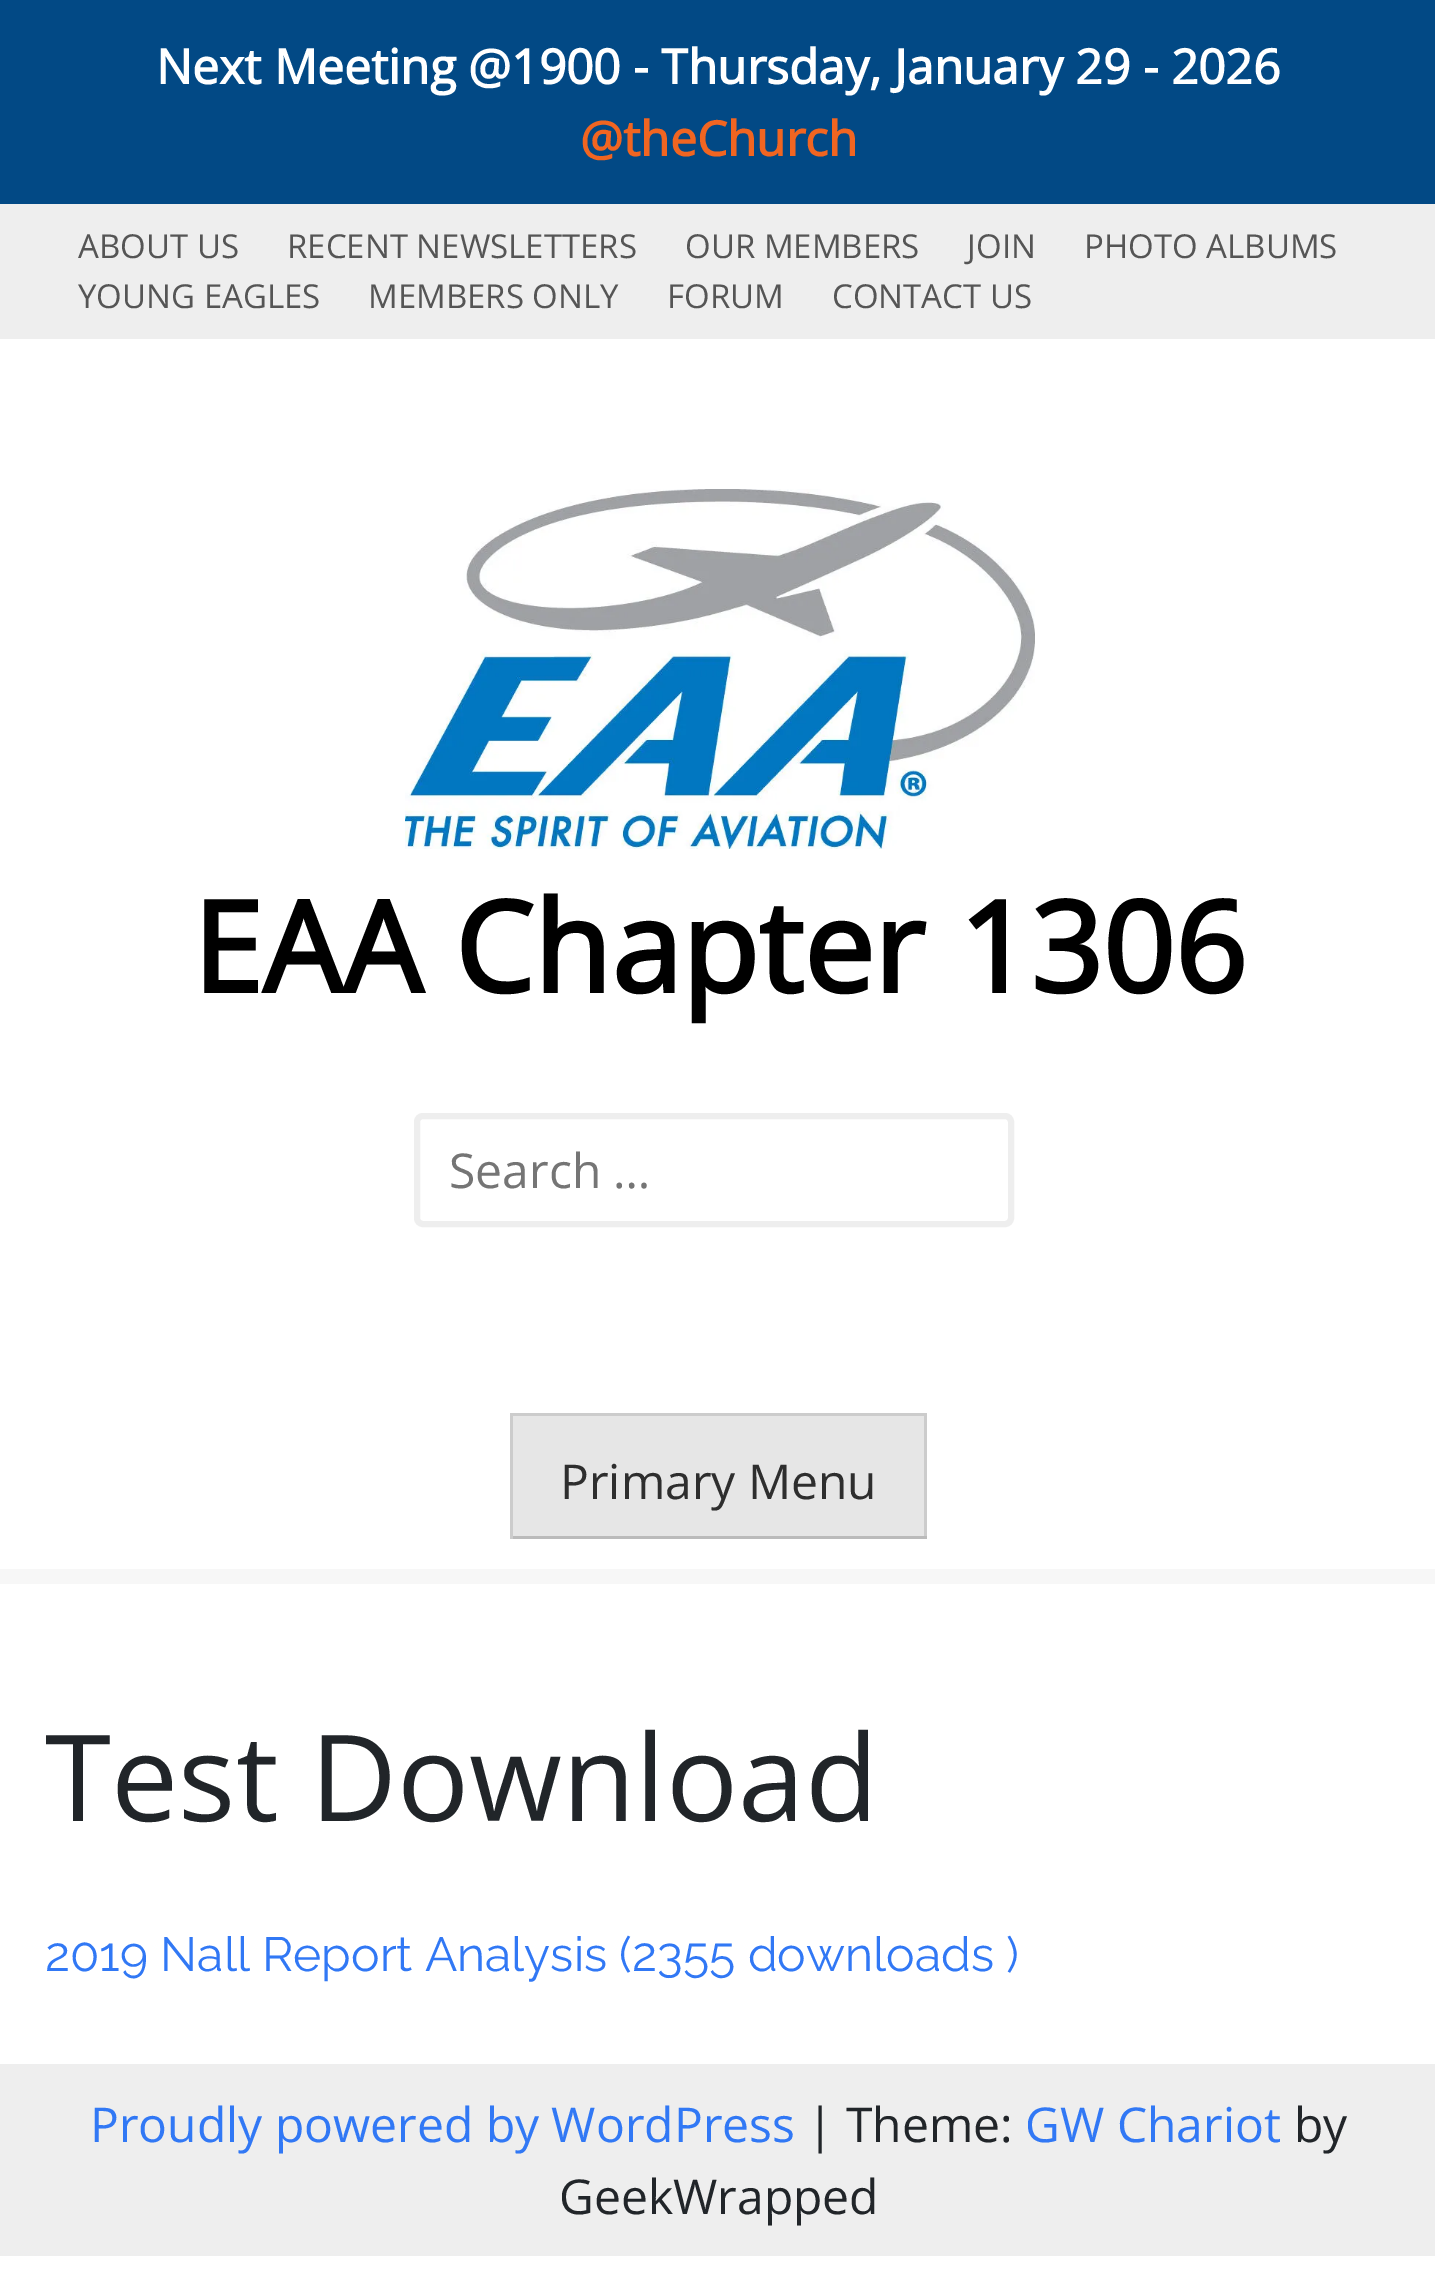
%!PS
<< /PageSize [1435 2279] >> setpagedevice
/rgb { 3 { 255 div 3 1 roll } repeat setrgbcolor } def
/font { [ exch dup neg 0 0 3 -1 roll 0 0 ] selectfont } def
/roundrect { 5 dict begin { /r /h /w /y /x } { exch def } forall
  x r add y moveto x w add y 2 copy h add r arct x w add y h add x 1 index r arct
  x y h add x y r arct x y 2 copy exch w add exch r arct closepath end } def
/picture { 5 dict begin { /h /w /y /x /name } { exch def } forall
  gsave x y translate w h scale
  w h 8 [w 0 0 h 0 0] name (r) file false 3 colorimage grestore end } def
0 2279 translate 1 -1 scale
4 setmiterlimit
255 255 255 rgb
0 0 1435 2279 rectfill
2 73 133 rgb
0 0 1435 204 rectfill
238 238 238 rgb
0 204 1435 135 rectfill
(img/1.rgb) 405 489 630 360 picture
6 setlinewidth
417 1116 594 108 6 roundrect stroke
[
  [0 1569 1435 15 247 247 247]
  [513 1416 411 120 230 230 230]
  [510 1413 417 3 204 204 204]
  [924 1413 3 126 204 204 204]
  [510 1536 417 3 187 187 187]
  [510 1413 3 126 204 204 204]
  [0 2064 1435 192 238 238 238]
] { aload pop rgb rectfill } forall
/OpenSans-Bold 48 font
255 255 255 rgb
156 84 moveto (Next Meeting @1900 - Thursday, January 29 - 2026) show
241 101 33 rgb
580 156 moveto (@theChurch) show
/OpenSans-Regular 33 font
85 85 85 rgb
[
  [(ABOUT US) 78 258]
  [(RECENT NEWSLETTERS) 287 258]
  [(OUR MEMBERS) 685 258]
  [(JOIN) 967 258]
  [(PHOTO ALBUMS) 1084 258]
  [(YOUNG EAGLES) 78 308]
  [(MEMBERS ONLY) 368 308]
  [(FORUM) 667 308]
  [(CONTACT US) 832 308]
] { aload pop moveto show } forall
/OpenSans-Bold 126 font
0 0 0 rgb
192 993 moveto (EAA Chapter 1306) show
/OpenSans-Regular 48 font
117 117 117 rgb
449 1188 moveto (Search …) show
46 46 46 rgb
560 1499 moveto (Primary Menu) show
/OpenSans-Regular 120 font
33 37 41 rgb
45 1821 moveto (Test Download) show
/Raleway-Thin 48 font
49 120 245 rgb
45 1971 moveto (2019 Nall Report Analysis \(2355 downloads \)) show
/OpenSans-Regular 48 font
90 2142 moveto (Proudly powered by WordPress) show
33 37 41 rgb
807 2142 moveto (| Theme:) show
49 120 245 rgb
1025 2142 moveto (GW Chariot) show
33 37 41 rgb
1294 2142 moveto (by) show
559 2214 moveto (GeekWrapped) show
showpage
